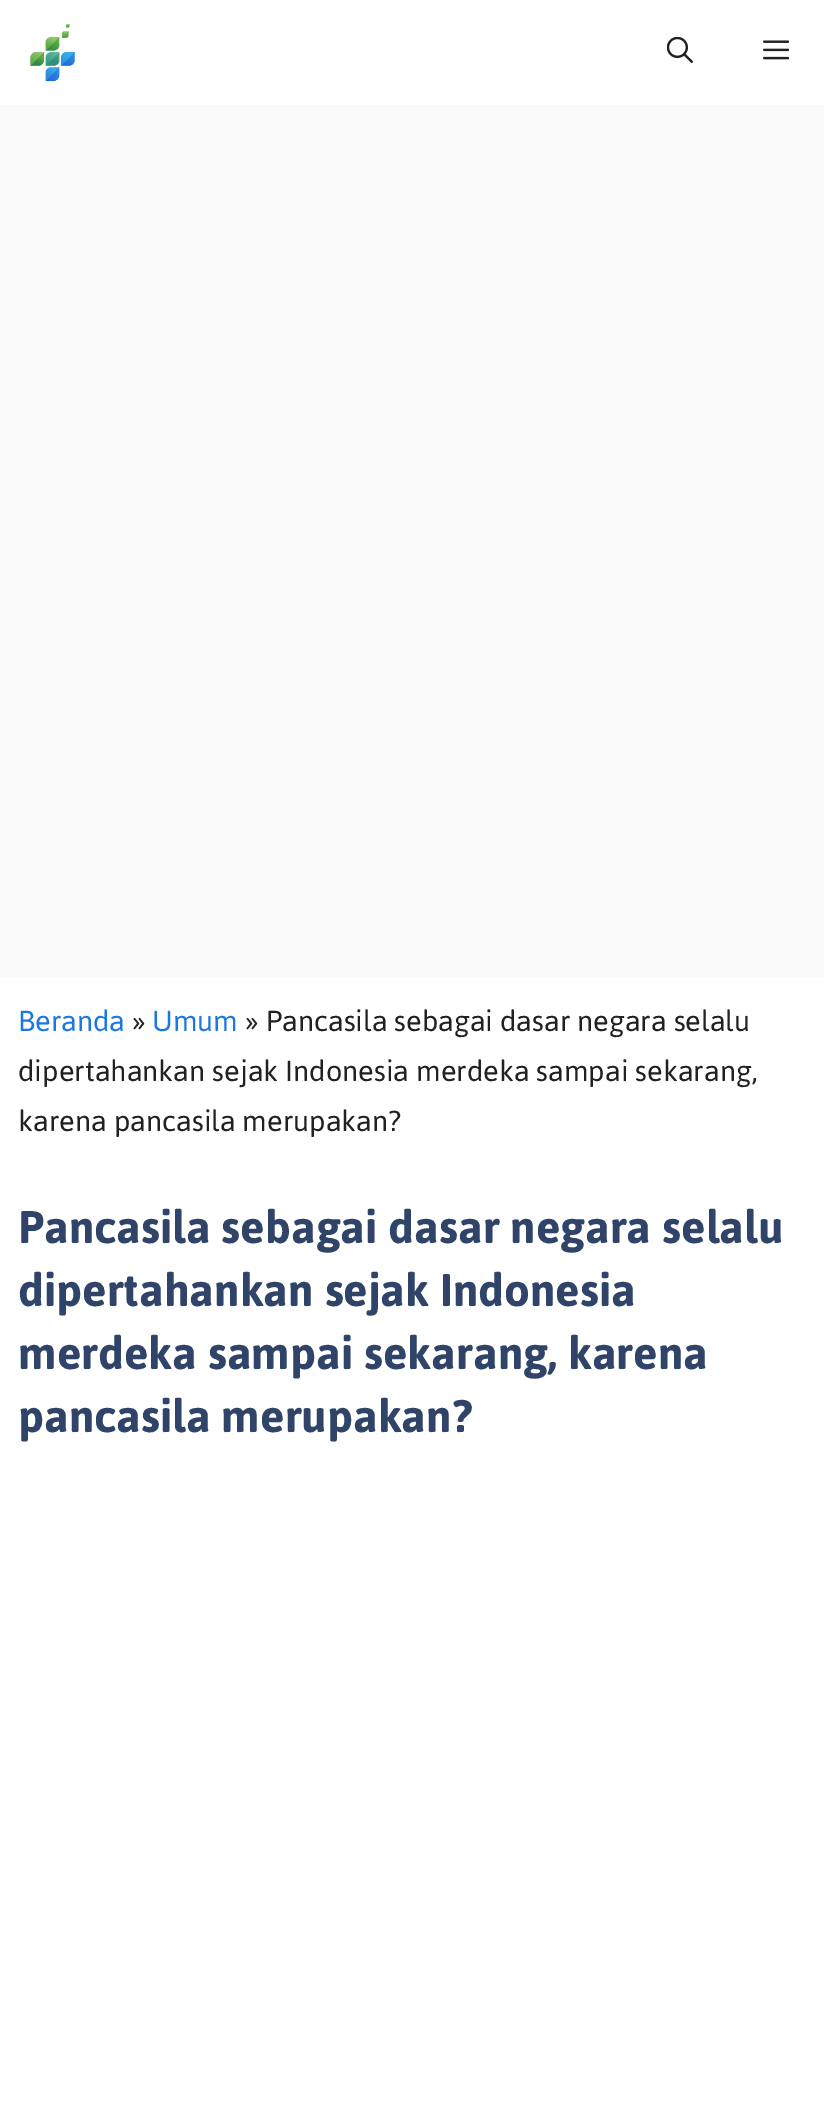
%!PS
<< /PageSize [824 2114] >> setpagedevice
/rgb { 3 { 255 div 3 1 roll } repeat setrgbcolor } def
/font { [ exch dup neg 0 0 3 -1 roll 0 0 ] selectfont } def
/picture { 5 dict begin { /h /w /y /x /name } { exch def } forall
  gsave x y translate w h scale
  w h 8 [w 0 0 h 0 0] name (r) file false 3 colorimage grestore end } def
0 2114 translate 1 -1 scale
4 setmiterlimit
250 250 250 rgb
0 0 824 2114 rectfill
255 255 255 rgb
0 0 824 105 rectfill
(img/1.rgb) 30 23 45 59 picture
(img/2.rgb) 667 37 26 26 picture
(img/3.rgb) 763 40 26 20 picture
0 978 824 1136 rectfill
/Jaldi-Regular 33.25 font
27 120 226 rgb
18 1031 moveto (Beranda) show
33 33 33 rgb
132 1031 moveto (») show
27 120 226 rgb
152 1031 moveto (Umum) show
33 33 33 rgb
[
  [(» Pancasila sebagai dasar negara selalu) 245 1031]
  [(dipertahankan sejak Indonesia merdeka sampai sekarang,) 18 1081]
  [(karena pancasila merupakan?) 18 1131]
] { aload pop moveto show } forall
/Jaldi-Bold 52.5 font
47 68 104 rgb
[
  [(Pancasila sebagai dasar negara selalu) 18 1243]
  [(dipertahankan sejak Indonesia) 18 1306]
  [(merdeka sampai sekarang, karena) 18 1369]
  [(pancasila merupakan?) 18 1432]
] { aload pop moveto show } forall
showpage
